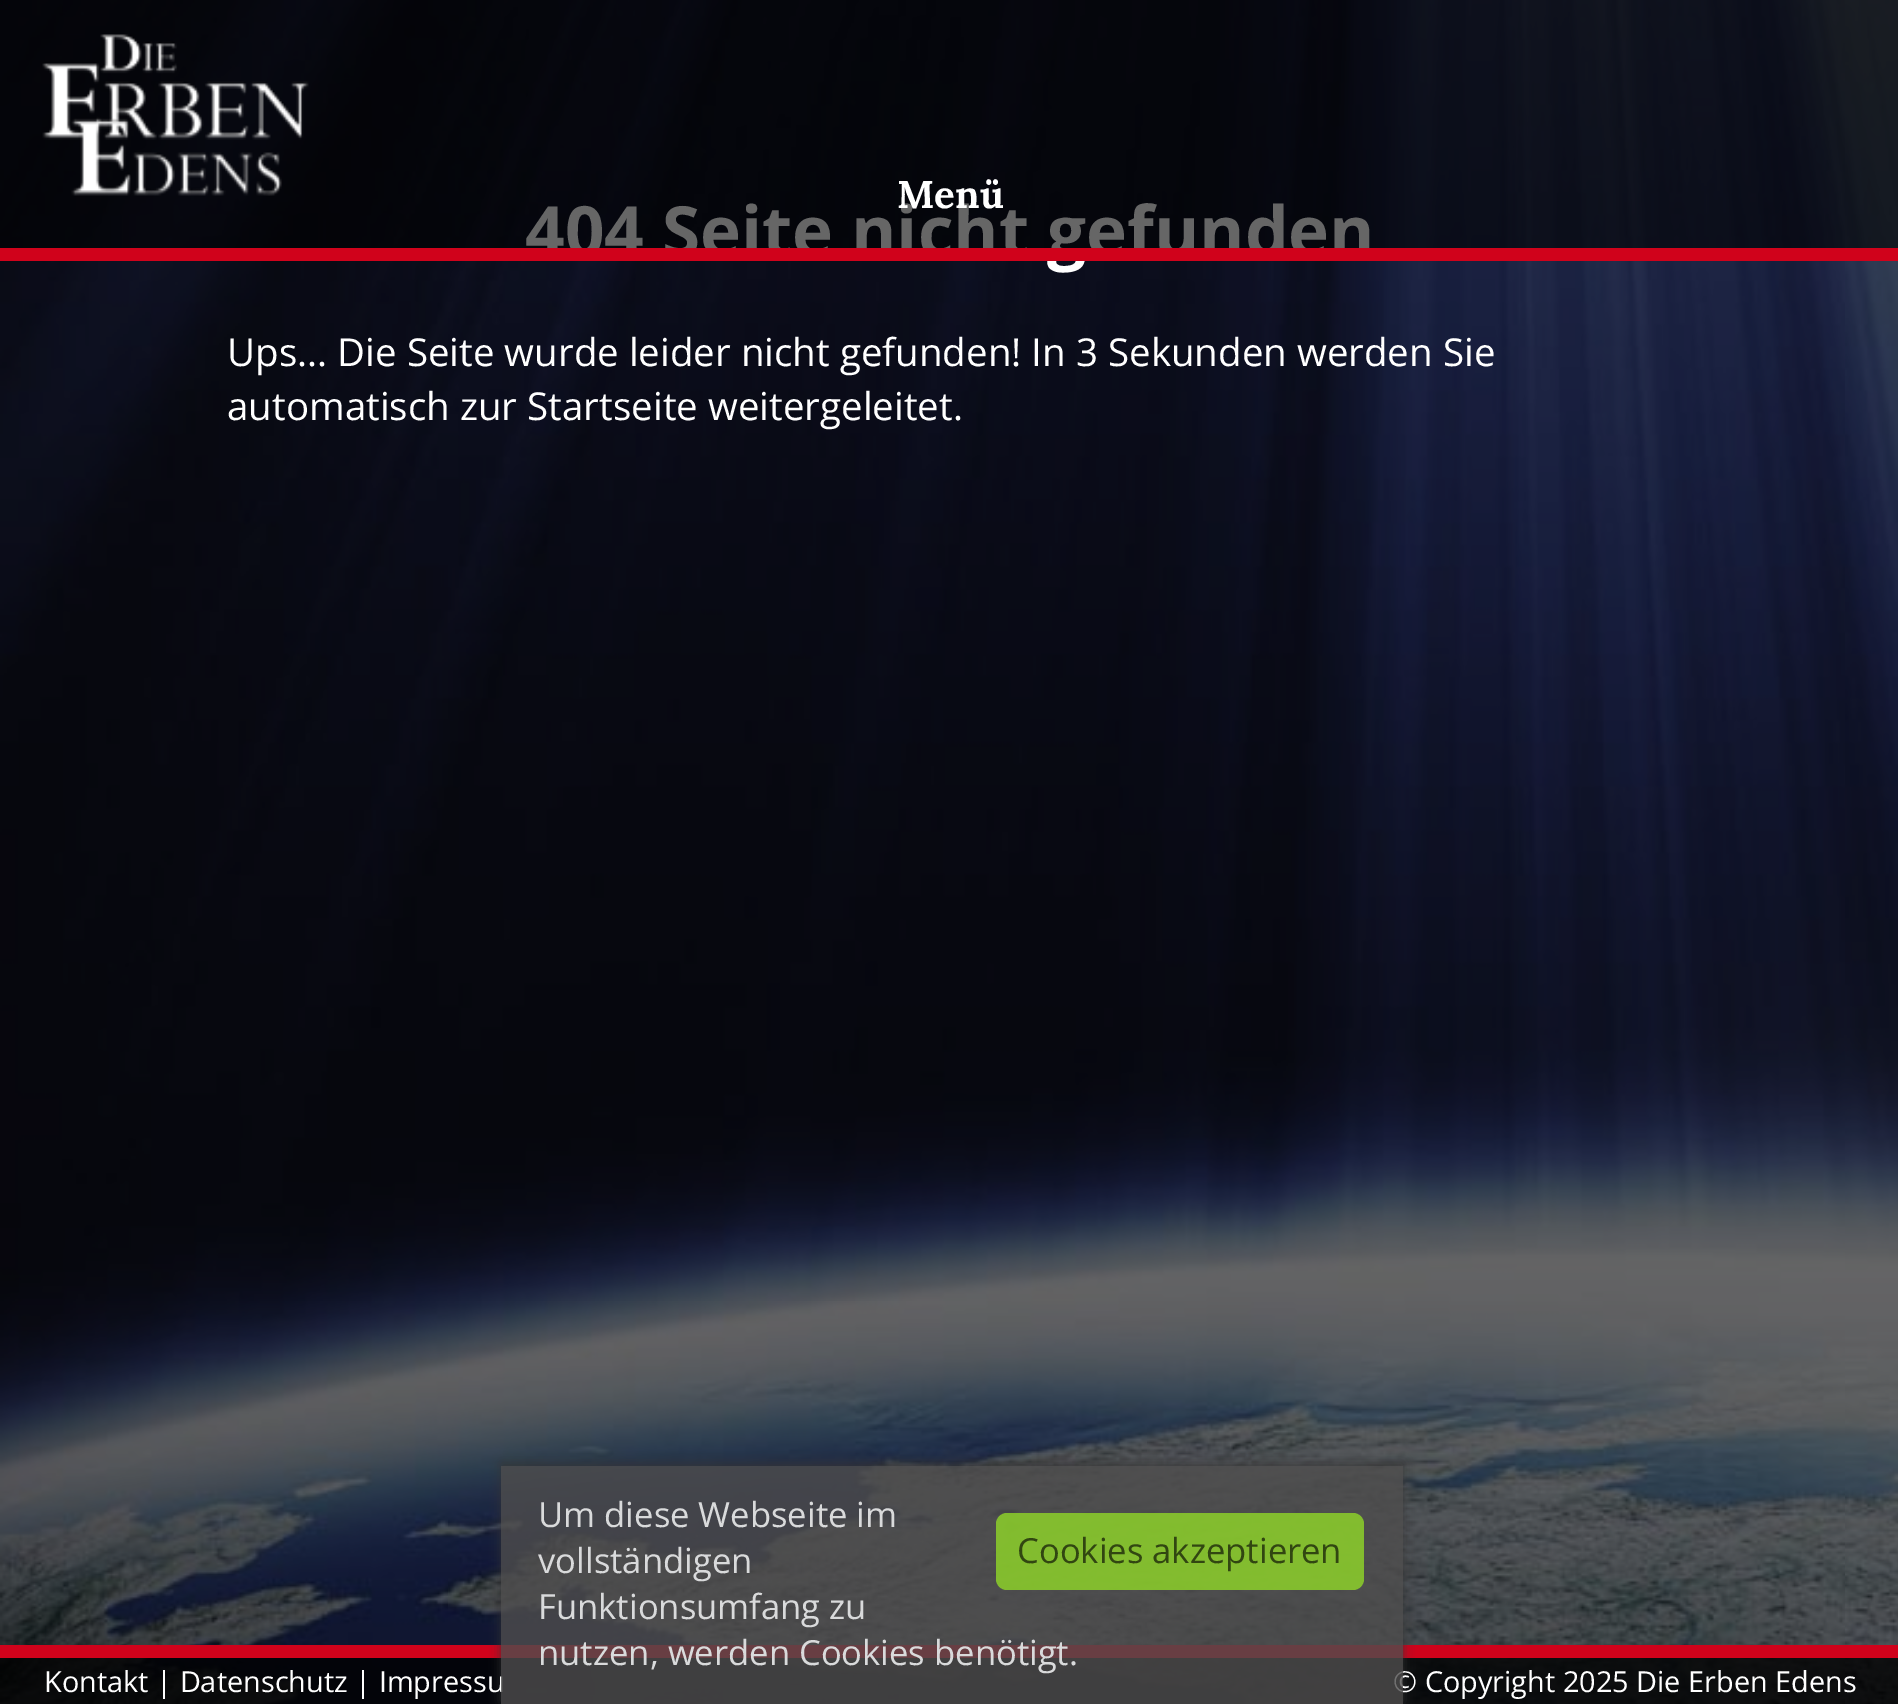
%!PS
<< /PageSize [1898 1704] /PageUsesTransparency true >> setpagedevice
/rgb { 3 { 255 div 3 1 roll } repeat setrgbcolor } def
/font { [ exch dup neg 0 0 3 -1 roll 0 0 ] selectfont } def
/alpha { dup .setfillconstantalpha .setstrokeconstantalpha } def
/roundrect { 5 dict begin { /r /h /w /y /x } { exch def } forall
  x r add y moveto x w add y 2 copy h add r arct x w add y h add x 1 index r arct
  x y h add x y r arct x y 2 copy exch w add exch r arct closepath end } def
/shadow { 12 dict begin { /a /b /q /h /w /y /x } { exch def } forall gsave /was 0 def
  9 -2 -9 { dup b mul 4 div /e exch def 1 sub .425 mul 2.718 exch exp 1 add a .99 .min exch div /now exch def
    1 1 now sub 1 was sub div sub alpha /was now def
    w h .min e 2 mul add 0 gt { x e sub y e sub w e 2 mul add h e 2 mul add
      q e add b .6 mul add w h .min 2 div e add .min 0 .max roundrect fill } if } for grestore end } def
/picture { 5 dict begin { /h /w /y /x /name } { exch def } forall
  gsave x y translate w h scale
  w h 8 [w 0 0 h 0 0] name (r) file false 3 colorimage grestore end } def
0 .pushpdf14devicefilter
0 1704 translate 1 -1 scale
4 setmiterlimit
255 255 255 rgb
0 0 1898 1704 rectfill
(img/1.rgb) 0 0 1898 1704 picture
0.8 alpha
0 0 0 rgb
0 1658 1898 46 rectfill
1 alpha
208 2 27 rgb
0 1645 1898 13 rectfill
gsave
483 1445 moveto 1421 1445 lineto 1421 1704 lineto 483 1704 lineto closepath 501 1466 moveto 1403 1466 lineto 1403 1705 lineto 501 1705 lineto closepath eoclip newpath
54 53 53 rgb
501 1463 902 239 0 5.5 0.8 shadow
grestore
/OpenSans-Bold 69.25 font
255 255 255 rgb
525 256 moveto (404 Seite nicht gefunden) show
0.6 alpha
0 0 0 rgb
0 0 1898 248 rectfill
1 alpha
(img/2.rgb) 42 34 267 162 picture
/Lora-Bold 38.5 font
255 255 255 rgb
897 208 moveto (Menü) show
208 2 27 rgb
0 248 1898 13 rectfill
/OpenSans-Regular 38.5 font
255 255 255 rgb
227 366 moveto (Ups... Die Seite wurde leider nicht gefunden! In 3 Sekunden werden Sie) show
227 420 moveto (automatisch zur Startseite weitergeleitet.) show
/OpenSans-Regular 28.9 font
44 1692 moveto (Kontakt | Datenschutz | Impressu) show
1393 1692 moveto (© Copyright 2025 Die Erben Edens) show
0.8 alpha
78 77 77 rgb
501 1466 902 238 rectfill
/OpenSans-Regular 34.6 font
1 alpha
217 218 219 rgb
[
  [(nutzen, werden Cookies benötigt.) 538 1665]
  [(Funktionsumfang zu) 538 1619]
  [(vollständigen) 538 1573]
  [(Um diese Webseite im) 538 1527]
] { aload pop moveto show } forall
0.8 alpha
144 216 39 rgb
996 1513 368 77 11 roundrect fill
1 alpha
49 70 17 rgb
1017 1563 moveto (Cookies akzeptieren) show
.poppdf14devicefilter showpage
